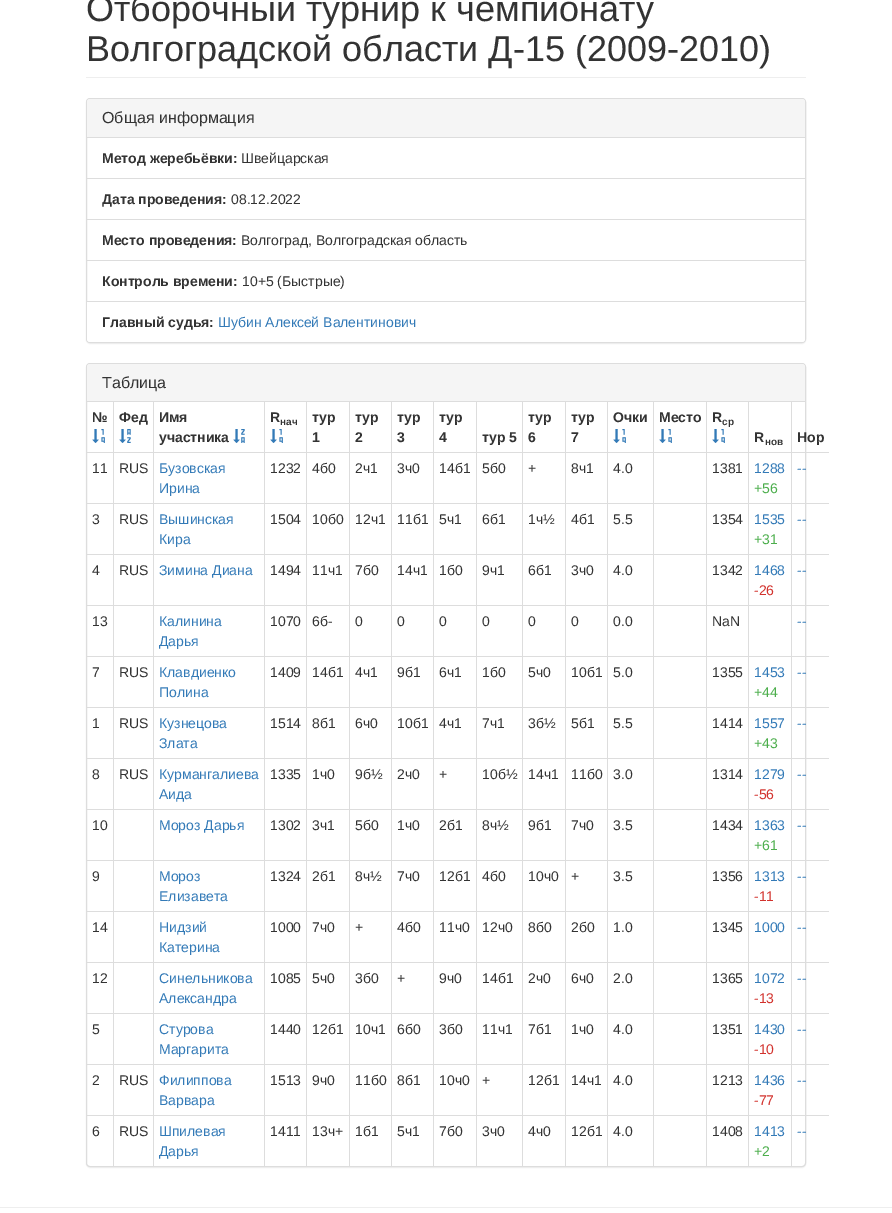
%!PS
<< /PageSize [892 1213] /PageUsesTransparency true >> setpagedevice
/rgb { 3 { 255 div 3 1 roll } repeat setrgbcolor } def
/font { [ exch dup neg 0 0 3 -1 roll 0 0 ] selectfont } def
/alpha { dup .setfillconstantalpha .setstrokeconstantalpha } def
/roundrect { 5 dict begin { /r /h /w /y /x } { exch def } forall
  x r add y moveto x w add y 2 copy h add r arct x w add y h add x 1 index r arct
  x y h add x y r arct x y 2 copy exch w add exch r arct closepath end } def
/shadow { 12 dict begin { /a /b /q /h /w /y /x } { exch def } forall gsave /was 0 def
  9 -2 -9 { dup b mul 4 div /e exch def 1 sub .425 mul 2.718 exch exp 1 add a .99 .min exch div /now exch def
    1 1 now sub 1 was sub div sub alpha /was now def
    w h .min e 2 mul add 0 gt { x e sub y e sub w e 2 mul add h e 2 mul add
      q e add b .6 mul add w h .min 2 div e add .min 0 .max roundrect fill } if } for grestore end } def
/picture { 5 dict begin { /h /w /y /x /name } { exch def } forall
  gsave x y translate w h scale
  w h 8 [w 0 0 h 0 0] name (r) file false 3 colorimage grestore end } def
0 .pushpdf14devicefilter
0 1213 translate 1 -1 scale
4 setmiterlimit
255 255 255 rgb
0 0 892 1213 rectfill
238 238 238 rgb
86 77 720 1 rectfill
0 0 0 rgb
86 99 720 245 4 0.5 0.05 shadow
255 255 255 rgb
86.5 98.5 719 244 3.5 roundrect gsave fill grestore
221 221 221 rgb
stroke
245 245 245 rgb
90 99 moveto 802 99 lineto 803.5 99 805 100.5 805 102 curveto 805 138 lineto 87 138 lineto 87 102 lineto 87 100.5 88.5 99 90 99 curveto closepath fill
[
  [87 137 718 1 221 221 221]
  [87 178 718 1 221 221 221]
  [87 219 718 1 221 221 221]
  [87 260 718 1 221 221 221]
] { aload pop rgb rectfill } forall
255 255 255 rgb
87 301 moveto 805 301 lineto 805 339 lineto 805 340.5 803.5 342 802 342 curveto 90 342 lineto 88.5 342 87 340.5 87 339 curveto closepath fill
221 221 221 rgb
87 301 718 1 rectfill
0 0 0 rgb
86 364 720 804 4 0.5 0.05 shadow
255 255 255 rgb
86.5 363.5 719 803 3.5 roundrect gsave fill grestore
221 221 221 rgb
stroke
245 245 245 rgb
90 364 moveto 802 364 lineto 803.5 364 805 365.5 805 367 curveto 805 402 lineto 87 402 lineto 87 367 lineto 87 365.5 88.5 364 90 364 curveto closepath fill
221 221 221 rgb
87 401 718 1 rectfill
(img/1.rgb) 92 429 13 14 picture
[
  [791 452 38 1 221 221 221]
  [791 503 38 1 221 221 221]
  [791 554 38 1 221 221 221]
  [791 605 38 1 221 221 221]
  [791 656 38 1 221 221 221]
  [791 707 38 1 221 221 221]
  [791 758 38 1 221 221 221]
  [791 809 38 1 221 221 221]
  [791 860 38 1 221 221 221]
  [791 911 38 1 221 221 221]
  [791 962 38 1 221 221 221]
  [791 1013 38 1 221 221 221]
  [791 1064 38 1 221 221 221]
  [791 1115 38 1 221 221 221]
  [791 1115 1 52 221 221 221]
  [748 1115 44 1 221 221 221]
  [791 1064 1 52 221 221 221]
  [748 1064 44 1 221 221 221]
  [791 1013 1 52 221 221 221]
  [748 1013 44 1 221 221 221]
  [791 962 1 52 221 221 221]
  [748 962 44 1 221 221 221]
  [791 911 1 52 221 221 221]
  [748 911 44 1 221 221 221]
  [791 860 1 52 221 221 221]
  [748 860 44 1 221 221 221]
  [791 809 1 52 221 221 221]
  [748 809 44 1 221 221 221]
  [791 758 1 52 221 221 221]
  [748 758 44 1 221 221 221]
  [791 707 1 52 221 221 221]
  [748 707 44 1 221 221 221]
  [791 656 1 52 221 221 221]
  [748 656 44 1 221 221 221]
  [791 605 1 52 221 221 221]
  [748 605 44 1 221 221 221]
  [791 554 1 52 221 221 221]
  [748 554 44 1 221 221 221]
  [791 503 1 52 221 221 221]
  [748 503 44 1 221 221 221]
  [791 452 1 52 221 221 221]
  [748 452 44 1 221 221 221]
  [748 1115 1 52 221 221 221]
  [706 1115 43 1 221 221 221]
  [748 1064 1 52 221 221 221]
  [706 1064 43 1 221 221 221]
  [748 1013 1 52 221 221 221]
  [706 1013 43 1 221 221 221]
  [748 962 1 52 221 221 221]
  [706 962 43 1 221 221 221]
  [748 911 1 52 221 221 221]
  [706 911 43 1 221 221 221]
  [748 860 1 52 221 221 221]
  [706 860 43 1 221 221 221]
  [748 809 1 52 221 221 221]
  [706 809 43 1 221 221 221]
  [748 758 1 52 221 221 221]
  [706 758 43 1 221 221 221]
  [748 707 1 52 221 221 221]
  [706 707 43 1 221 221 221]
  [748 656 1 52 221 221 221]
  [706 656 43 1 221 221 221]
  [748 605 1 52 221 221 221]
  [706 605 43 1 221 221 221]
  [748 554 1 52 221 221 221]
  [706 554 43 1 221 221 221]
  [748 503 1 52 221 221 221]
  [706 503 43 1 221 221 221]
  [748 452 1 52 221 221 221]
  [706 452 43 1 221 221 221]
  [706 1115 1 52 221 221 221]
  [653 1115 54 1 221 221 221]
  [706 1064 1 52 221 221 221]
  [653 1064 54 1 221 221 221]
  [706 1013 1 52 221 221 221]
  [653 1013 54 1 221 221 221]
  [706 962 1 52 221 221 221]
  [653 962 54 1 221 221 221]
  [706 911 1 52 221 221 221]
  [653 911 54 1 221 221 221]
  [706 860 1 52 221 221 221]
  [653 860 54 1 221 221 221]
  [706 809 1 52 221 221 221]
  [653 809 54 1 221 221 221]
  [706 758 1 52 221 221 221]
  [653 758 54 1 221 221 221]
  [706 707 1 52 221 221 221]
  [653 707 54 1 221 221 221]
  [706 656 1 52 221 221 221]
  [653 656 54 1 221 221 221]
  [706 605 1 52 221 221 221]
  [653 605 54 1 221 221 221]
  [706 554 1 52 221 221 221]
  [653 554 54 1 221 221 221]
  [706 503 1 52 221 221 221]
  [653 503 54 1 221 221 221]
  [706 452 1 52 221 221 221]
  [653 452 54 1 221 221 221]
  [653 1115 1 52 221 221 221]
  [607 1115 47 1 221 221 221]
  [653 1064 1 52 221 221 221]
  [607 1064 47 1 221 221 221]
  [653 1013 1 52 221 221 221]
  [607 1013 47 1 221 221 221]
  [653 962 1 52 221 221 221]
  [607 962 47 1 221 221 221]
  [653 911 1 52 221 221 221]
  [607 911 47 1 221 221 221]
  [653 860 1 52 221 221 221]
  [607 860 47 1 221 221 221]
  [653 809 1 52 221 221 221]
  [607 809 47 1 221 221 221]
  [653 758 1 52 221 221 221]
  [607 758 47 1 221 221 221]
  [653 707 1 52 221 221 221]
  [607 707 47 1 221 221 221]
  [653 656 1 52 221 221 221]
  [607 656 47 1 221 221 221]
  [653 605 1 52 221 221 221]
  [607 605 47 1 221 221 221]
  [653 554 1 52 221 221 221]
  [607 554 47 1 221 221 221]
  [653 503 1 52 221 221 221]
  [607 503 47 1 221 221 221]
  [653 452 1 52 221 221 221]
  [607 452 47 1 221 221 221]
  [607 1115 1 52 221 221 221]
  [565 1115 43 1 221 221 221]
  [607 1064 1 52 221 221 221]
  [565 1064 43 1 221 221 221]
  [607 1013 1 52 221 221 221]
  [565 1013 43 1 221 221 221]
  [607 962 1 52 221 221 221]
  [565 962 43 1 221 221 221]
  [607 911 1 52 221 221 221]
  [565 911 43 1 221 221 221]
  [607 860 1 52 221 221 221]
  [565 860 43 1 221 221 221]
  [607 809 1 52 221 221 221]
  [565 809 43 1 221 221 221]
  [607 758 1 52 221 221 221]
  [565 758 43 1 221 221 221]
  [607 707 1 52 221 221 221]
  [565 707 43 1 221 221 221]
  [607 656 1 52 221 221 221]
  [565 656 43 1 221 221 221]
  [607 605 1 52 221 221 221]
  [565 605 43 1 221 221 221]
  [607 554 1 52 221 221 221]
  [565 554 43 1 221 221 221]
  [607 503 1 52 221 221 221]
  [565 503 43 1 221 221 221]
  [607 452 1 52 221 221 221]
  [565 452 43 1 221 221 221]
  [565 1115 1 52 221 221 221]
  [522 1115 44 1 221 221 221]
  [565 1064 1 52 221 221 221]
  [522 1064 44 1 221 221 221]
  [565 1013 1 52 221 221 221]
  [522 1013 44 1 221 221 221]
  [565 962 1 52 221 221 221]
  [522 962 44 1 221 221 221]
  [565 911 1 52 221 221 221]
  [522 911 44 1 221 221 221]
  [565 860 1 52 221 221 221]
  [522 860 44 1 221 221 221]
  [565 809 1 52 221 221 221]
  [522 809 44 1 221 221 221]
  [565 758 1 52 221 221 221]
  [522 758 44 1 221 221 221]
  [565 707 1 52 221 221 221]
  [522 707 44 1 221 221 221]
  [565 656 1 52 221 221 221]
  [522 656 44 1 221 221 221]
  [565 605 1 52 221 221 221]
  [522 605 44 1 221 221 221]
  [565 554 1 52 221 221 221]
  [522 554 44 1 221 221 221]
  [565 503 1 52 221 221 221]
  [522 503 44 1 221 221 221]
  [565 452 1 52 221 221 221]
  [522 452 44 1 221 221 221]
  [522 1115 1 52 221 221 221]
  [476 1115 47 1 221 221 221]
  [522 1064 1 52 221 221 221]
  [476 1064 47 1 221 221 221]
  [522 1013 1 52 221 221 221]
  [476 1013 47 1 221 221 221]
  [522 962 1 52 221 221 221]
  [476 962 47 1 221 221 221]
  [522 911 1 52 221 221 221]
  [476 911 47 1 221 221 221]
  [522 860 1 52 221 221 221]
  [476 860 47 1 221 221 221]
  [522 809 1 52 221 221 221]
  [476 809 47 1 221 221 221]
  [522 758 1 52 221 221 221]
  [476 758 47 1 221 221 221]
  [522 707 1 52 221 221 221]
  [476 707 47 1 221 221 221]
  [522 656 1 52 221 221 221]
  [476 656 47 1 221 221 221]
  [522 605 1 52 221 221 221]
  [476 605 47 1 221 221 221]
  [522 554 1 52 221 221 221]
  [476 554 47 1 221 221 221]
  [522 503 1 52 221 221 221]
  [476 503 47 1 221 221 221]
  [522 452 1 52 221 221 221]
  [476 452 47 1 221 221 221]
  [476 1115 1 52 221 221 221]
  [433 1115 44 1 221 221 221]
  [476 1064 1 52 221 221 221]
  [433 1064 44 1 221 221 221]
  [476 1013 1 52 221 221 221]
  [433 1013 44 1 221 221 221]
  [476 962 1 52 221 221 221]
  [433 962 44 1 221 221 221]
  [476 911 1 52 221 221 221]
  [433 911 44 1 221 221 221]
  [476 860 1 52 221 221 221]
  [433 860 44 1 221 221 221]
  [476 809 1 52 221 221 221]
  [433 809 44 1 221 221 221]
  [476 758 1 52 221 221 221]
  [433 758 44 1 221 221 221]
  [476 707 1 52 221 221 221]
  [433 707 44 1 221 221 221]
  [476 656 1 52 221 221 221]
  [433 656 44 1 221 221 221]
  [476 605 1 52 221 221 221]
  [433 605 44 1 221 221 221]
  [476 554 1 52 221 221 221]
  [433 554 44 1 221 221 221]
  [476 503 1 52 221 221 221]
  [433 503 44 1 221 221 221]
  [476 452 1 52 221 221 221]
  [433 452 44 1 221 221 221]
  [433 1115 1 52 221 221 221]
  [391 1115 43 1 221 221 221]
  [433 1064 1 52 221 221 221]
  [391 1064 43 1 221 221 221]
  [433 1013 1 52 221 221 221]
  [391 1013 43 1 221 221 221]
  [433 962 1 52 221 221 221]
  [391 962 43 1 221 221 221]
  [433 911 1 52 221 221 221]
  [391 911 43 1 221 221 221]
  [433 860 1 52 221 221 221]
  [391 860 43 1 221 221 221]
  [433 809 1 52 221 221 221]
  [391 809 43 1 221 221 221]
  [433 758 1 52 221 221 221]
  [391 758 43 1 221 221 221]
  [433 707 1 52 221 221 221]
  [391 707 43 1 221 221 221]
  [433 656 1 52 221 221 221]
  [391 656 43 1 221 221 221]
  [433 605 1 52 221 221 221]
  [391 605 43 1 221 221 221]
  [433 554 1 52 221 221 221]
  [391 554 43 1 221 221 221]
  [433 503 1 52 221 221 221]
  [391 503 43 1 221 221 221]
  [433 452 1 52 221 221 221]
  [391 452 43 1 221 221 221]
  [391 1115 1 52 221 221 221]
  [349 1115 43 1 221 221 221]
  [391 1064 1 52 221 221 221]
  [349 1064 43 1 221 221 221]
  [391 1013 1 52 221 221 221]
  [349 1013 43 1 221 221 221]
  [391 962 1 52 221 221 221]
  [349 962 43 1 221 221 221]
  [391 911 1 52 221 221 221]
  [349 911 43 1 221 221 221]
  [391 860 1 52 221 221 221]
  [349 860 43 1 221 221 221]
  [391 809 1 52 221 221 221]
  [349 809 43 1 221 221 221]
  [391 758 1 52 221 221 221]
  [349 758 43 1 221 221 221]
  [391 707 1 52 221 221 221]
  [349 707 43 1 221 221 221]
  [391 656 1 52 221 221 221]
  [349 656 43 1 221 221 221]
  [391 605 1 52 221 221 221]
  [349 605 43 1 221 221 221]
  [391 554 1 52 221 221 221]
  [349 554 43 1 221 221 221]
  [391 503 1 52 221 221 221]
  [349 503 43 1 221 221 221]
  [391 452 1 52 221 221 221]
  [349 452 43 1 221 221 221]
  [349 1115 1 52 221 221 221]
  [306 1115 44 1 221 221 221]
  [349 1064 1 52 221 221 221]
  [306 1064 44 1 221 221 221]
  [349 1013 1 52 221 221 221]
  [306 1013 44 1 221 221 221]
  [349 962 1 52 221 221 221]
  [306 962 44 1 221 221 221]
  [349 911 1 52 221 221 221]
  [306 911 44 1 221 221 221]
  [349 860 1 52 221 221 221]
  [306 860 44 1 221 221 221]
  [349 809 1 52 221 221 221]
  [306 809 44 1 221 221 221]
  [349 758 1 52 221 221 221]
  [306 758 44 1 221 221 221]
  [349 707 1 52 221 221 221]
  [306 707 44 1 221 221 221]
  [349 656 1 52 221 221 221]
  [306 656 44 1 221 221 221]
  [349 605 1 52 221 221 221]
  [306 605 44 1 221 221 221]
  [349 554 1 52 221 221 221]
  [306 554 44 1 221 221 221]
  [349 503 1 52 221 221 221]
  [306 503 44 1 221 221 221]
  [349 452 1 52 221 221 221]
  [306 452 44 1 221 221 221]
  [306 1115 1 52 221 221 221]
  [264 1115 43 1 221 221 221]
  [306 1064 1 52 221 221 221]
  [264 1064 43 1 221 221 221]
  [306 1013 1 52 221 221 221]
  [264 1013 43 1 221 221 221]
  [306 962 1 52 221 221 221]
  [264 962 43 1 221 221 221]
  [306 911 1 52 221 221 221]
  [264 911 43 1 221 221 221]
  [306 860 1 52 221 221 221]
  [264 860 43 1 221 221 221]
  [306 809 1 52 221 221 221]
  [264 809 43 1 221 221 221]
  [306 758 1 52 221 221 221]
  [264 758 43 1 221 221 221]
  [306 707 1 52 221 221 221]
  [264 707 43 1 221 221 221]
  [306 656 1 52 221 221 221]
  [264 656 43 1 221 221 221]
  [306 605 1 52 221 221 221]
  [264 605 43 1 221 221 221]
  [306 554 1 52 221 221 221]
  [264 554 43 1 221 221 221]
  [306 503 1 52 221 221 221]
  [264 503 43 1 221 221 221]
  [306 452 1 52 221 221 221]
  [264 452 43 1 221 221 221]
  [264 1115 1 52 221 221 221]
  [153 1115 112 1 221 221 221]
  [264 1064 1 52 221 221 221]
  [153 1064 112 1 221 221 221]
  [264 1013 1 52 221 221 221]
  [153 1013 112 1 221 221 221]
  [264 962 1 52 221 221 221]
  [153 962 112 1 221 221 221]
  [264 911 1 52 221 221 221]
  [153 911 112 1 221 221 221]
  [264 860 1 52 221 221 221]
  [153 860 112 1 221 221 221]
  [264 809 1 52 221 221 221]
  [153 809 112 1 221 221 221]
  [264 758 1 52 221 221 221]
  [153 758 112 1 221 221 221]
  [264 707 1 52 221 221 221]
  [153 707 112 1 221 221 221]
  [264 656 1 52 221 221 221]
  [153 656 112 1 221 221 221]
  [264 605 1 52 221 221 221]
  [153 605 112 1 221 221 221]
  [264 554 1 52 221 221 221]
  [153 554 112 1 221 221 221]
  [264 503 1 52 221 221 221]
  [153 503 112 1 221 221 221]
  [264 452 1 52 221 221 221]
  [153 452 112 1 221 221 221]
  [153 1115 1 52 221 221 221]
  [113 1115 41 1 221 221 221]
  [153 1064 1 52 221 221 221]
  [113 1064 41 1 221 221 221]
  [153 1013 1 52 221 221 221]
  [113 1013 41 1 221 221 221]
  [153 962 1 52 221 221 221]
  [113 962 41 1 221 221 221]
  [153 911 1 52 221 221 221]
  [113 911 41 1 221 221 221]
  [153 860 1 52 221 221 221]
  [113 860 41 1 221 221 221]
  [153 809 1 52 221 221 221]
  [113 809 41 1 221 221 221]
  [153 758 1 52 221 221 221]
  [113 758 41 1 221 221 221]
  [153 707 1 52 221 221 221]
  [113 707 41 1 221 221 221]
  [153 656 1 52 221 221 221]
  [113 656 41 1 221 221 221]
  [153 605 1 52 221 221 221]
  [113 605 41 1 221 221 221]
  [153 554 1 52 221 221 221]
  [113 554 41 1 221 221 221]
  [153 503 1 52 221 221 221]
  [113 503 41 1 221 221 221]
  [153 452 1 52 221 221 221]
  [113 452 41 1 221 221 221]
  [113 1115 1 52 221 221 221]
  [87 1115 27 1 221 221 221]
  [113 1064 1 52 221 221 221]
  [87 1064 27 1 221 221 221]
  [113 1013 1 52 221 221 221]
  [87 1013 27 1 221 221 221]
  [113 962 1 52 221 221 221]
  [87 962 27 1 221 221 221]
  [113 911 1 52 221 221 221]
  [87 911 27 1 221 221 221]
  [113 860 1 52 221 221 221]
  [87 860 27 1 221 221 221]
  [113 809 1 52 221 221 221]
  [87 809 27 1 221 221 221]
  [113 758 1 52 221 221 221]
  [87 758 27 1 221 221 221]
  [113 707 1 52 221 221 221]
  [87 707 27 1 221 221 221]
  [113 656 1 52 221 221 221]
  [87 656 27 1 221 221 221]
  [113 605 1 52 221 221 221]
  [87 605 27 1 221 221 221]
  [113 554 1 52 221 221 221]
  [87 554 27 1 221 221 221]
  [113 503 1 52 221 221 221]
  [87 503 27 1 221 221 221]
  [113 452 1 52 221 221 221]
  [87 452 27 1 221 221 221]
  [113 402 1 51 221 221 221]
] { aload pop rgb rectfill } forall
(img/2.rgb) 119 429 12 14 picture
153 402 1 51 rectfill
(img/3.rgb) 233 429 12 14 picture
264 402 1 51 rectfill
(img/1.rgb) 270 429 13 14 picture
[
  [306 402 1 51 221 221 221]
  [349 402 1 51 221 221 221]
  [391 402 1 51 221 221 221]
  [433 402 1 51 221 221 221]
  [476 402 1 51 221 221 221]
  [522 402 1 51 221 221 221]
  [565 402 1 51 221 221 221]
  [607 402 1 51 221 221 221]
] { aload pop rgb rectfill } forall
(img/1.rgb) 613 429 13 14 picture
653 402 1 51 rectfill
(img/1.rgb) 659 429 13 14 picture
706 402 1 51 rectfill
(img/1.rgb) 712 429 13 14 picture
[
  [748 402 1 51 221 221 221]
  [791 402 1 51 221 221 221]
  [0 1207 892 1 238 238 238]
] { aload pop rgb rectfill } forall
/LiberationSans-Regular 36 font
51 51 51 rgb
86 21 moveto (Отборочный турнир к чемпионату) show
86 61 moveto (Волгоградской области Д-15 \(2009-2010\)) show
/LiberationSans-Regular 16 font
102 123 moveto (Общая информация) show
/LiberationSans-Bold 14 font
102 163 moveto (Метод жеребьёвки:) show
/LiberationSans-Regular 14 font
241 163 moveto (Швейцарская) show
/LiberationSans-Bold 14 font
102 204 moveto (Дата проведения:) show
/LiberationSans-Regular 14 font
231 204 moveto (08.12.2022) show
/LiberationSans-Bold 14 font
102 245 moveto (Место проведения:) show
/LiberationSans-Regular 14 font
241 245 moveto (Волгоград, Волгоградская область) show
/LiberationSans-Bold 14 font
102 286 moveto (Контроль времени:) show
/LiberationSans-Regular 14 font
242 286 moveto (10+5 \(Быстрые\)) show
/LiberationSans-Bold 14 font
102 327 moveto (Главный судья:) show
/LiberationSans-Regular 14 font
51 122 183 rgb
218 327 moveto (Шубин Алексей Валентинович) show
/LiberationSans-Regular 16 font
51 51 51 rgb
102 388 moveto (Таблица) show
/LiberationSans-Bold 14 font
[
  [(№) 92 422]
  [(Фед) 119 422]
  [(Имя) 159 422]
  [(участника) 159 442]
  [(R) 270 422]
] { aload pop moveto show } forall
/LiberationSans-Bold 10 font
280 425 moveto (нач) show
/LiberationSans-Bold 14 font
[
  [(тур) 312 422]
  [(1) 312 442]
  [(тур) 355 422]
  [(2) 355 442]
  [(тур) 397 422]
  [(3) 397 442]
  [(тур) 439 422]
  [(4) 439 442]
  [(тур 5) 482 442]
  [(тур) 528 422]
  [(6) 528 442]
  [(тур) 571 422]
  [(7) 571 442]
  [(Очки) 613 422]
  [(Место) 659 422]
  [(R) 712 422]
] { aload pop moveto show } forall
/LiberationSans-Bold 10 font
722 425 moveto (ср) show
/LiberationSans-Bold 14 font
754 442 moveto (R) show
/LiberationSans-Bold 10 font
765 445 moveto (нов) show
/LiberationSans-Bold 14 font
797 442 moveto (Нор) show
/LiberationSans-Regular 14 font
92 473 moveto (11) show
119 473 moveto (RUS) show
51 122 183 rgb
159 473 moveto (Бузовская) show
159 493 moveto (Ирина) show
51 51 51 rgb
[
  [(1232) 270 473]
  [(4б0) 312 473]
  [(2ч1) 355 473]
  [(3ч0) 397 473]
  [(14б1) 439 473]
  [(5б0) 482 473]
  [(+) 528 473]
  [(8ч1) 571 473]
  [(4.0) 613 473]
  [(1381) 712 473]
] { aload pop moveto show } forall
51 122 183 rgb
754 473 moveto (1288) show
76 174 76 rgb
754 493 moveto (+56) show
51 122 183 rgb
797 473 moveto (--) show
51 51 51 rgb
92 524 moveto (3) show
119 524 moveto (RUS) show
51 122 183 rgb
159 524 moveto (Вышинская) show
159 544 moveto (Кира) show
51 51 51 rgb
[
  [(1504) 270 524]
  [(10б0) 312 524]
  [(12ч1) 355 524]
  [(11б1) 397 524]
  [(5ч1) 439 524]
  [(6б1) 482 524]
  [(1ч½) 528 524]
  [(4б1) 571 524]
  [(5.5) 613 524]
  [(1354) 712 524]
] { aload pop moveto show } forall
51 122 183 rgb
754 524 moveto (1535) show
76 174 76 rgb
754 544 moveto (+31) show
51 122 183 rgb
797 524 moveto (--) show
51 51 51 rgb
92 575 moveto (4) show
119 575 moveto (RUS) show
51 122 183 rgb
159 575 moveto (Зимина Диана) show
51 51 51 rgb
[
  [(1494) 270 575]
  [(11ч1) 312 575]
  [(7б0) 355 575]
  [(14ч1) 397 575]
  [(1б0) 439 575]
  [(9ч1) 482 575]
  [(6б1) 528 575]
  [(3ч0) 571 575]
  [(4.0) 613 575]
  [(1342) 712 575]
] { aload pop moveto show } forall
51 122 183 rgb
754 575 moveto (1468) show
210 50 45 rgb
754 595 moveto (-26) show
51 122 183 rgb
797 575 moveto (--) show
51 51 51 rgb
92 626 moveto (13) show
51 122 183 rgb
159 626 moveto (Калинина) show
159 646 moveto (Дарья) show
51 51 51 rgb
[
  [(1070) 270 626]
  [(6б-) 312 626]
  [(0) 355 626]
  [(0) 397 626]
  [(0) 439 626]
  [(0) 482 626]
  [(0) 528 626]
  [(0) 571 626]
  [(0.0) 613 626]
  [(NaN) 712 626]
] { aload pop moveto show } forall
51 122 183 rgb
797 626 moveto (--) show
51 51 51 rgb
92 677 moveto (7) show
119 677 moveto (RUS) show
51 122 183 rgb
159 677 moveto (Клавдиенко) show
159 697 moveto (Полина) show
51 51 51 rgb
[
  [(1409) 270 677]
  [(14б1) 312 677]
  [(4ч1) 355 677]
  [(9б1) 397 677]
  [(6ч1) 439 677]
  [(1б0) 482 677]
  [(5ч0) 528 677]
  [(10б1) 571 677]
  [(5.0) 613 677]
  [(1355) 712 677]
] { aload pop moveto show } forall
51 122 183 rgb
754 677 moveto (1453) show
76 174 76 rgb
754 697 moveto (+44) show
51 122 183 rgb
797 677 moveto (--) show
51 51 51 rgb
92 728 moveto (1) show
119 728 moveto (RUS) show
51 122 183 rgb
159 728 moveto (Кузнецова) show
159 748 moveto (Злата) show
51 51 51 rgb
[
  [(1514) 270 728]
  [(8б1) 312 728]
  [(6ч0) 355 728]
  [(10б1) 397 728]
  [(4ч1) 439 728]
  [(7ч1) 482 728]
  [(3б½) 528 728]
  [(5б1) 571 728]
  [(5.5) 613 728]
  [(1414) 712 728]
] { aload pop moveto show } forall
51 122 183 rgb
754 728 moveto (1557) show
76 174 76 rgb
754 748 moveto (+43) show
51 122 183 rgb
797 728 moveto (--) show
51 51 51 rgb
92 779 moveto (8) show
119 779 moveto (RUS) show
51 122 183 rgb
159 779 moveto (Курмангалиева) show
159 799 moveto (Аида) show
51 51 51 rgb
[
  [(1335) 270 779]
  [(1ч0) 312 779]
  [(9б½) 355 779]
  [(2ч0) 397 779]
  [(+) 439 779]
  [(10б½) 482 779]
  [(14ч1) 528 779]
  [(11б0) 571 779]
  [(3.0) 613 779]
  [(1314) 712 779]
] { aload pop moveto show } forall
51 122 183 rgb
754 779 moveto (1279) show
210 50 45 rgb
754 799 moveto (-56) show
51 122 183 rgb
797 779 moveto (--) show
51 51 51 rgb
92 830 moveto (10) show
51 122 183 rgb
159 830 moveto (Мороз Дарья) show
51 51 51 rgb
[
  [(1302) 270 830]
  [(3ч1) 312 830]
  [(5б0) 355 830]
  [(1ч0) 397 830]
  [(2б1) 439 830]
  [(8ч½) 482 830]
  [(9б1) 528 830]
  [(7ч0) 571 830]
  [(3.5) 613 830]
  [(1434) 712 830]
] { aload pop moveto show } forall
51 122 183 rgb
754 830 moveto (1363) show
76 174 76 rgb
754 850 moveto (+61) show
51 122 183 rgb
797 830 moveto (--) show
51 51 51 rgb
92 881 moveto (9) show
51 122 183 rgb
159 881 moveto (Мороз) show
159 901 moveto (Елизавета) show
51 51 51 rgb
[
  [(1324) 270 881]
  [(2б1) 312 881]
  [(8ч½) 355 881]
  [(7ч0) 397 881]
  [(12б1) 439 881]
  [(4б0) 482 881]
  [(10ч0) 528 881]
  [(+) 571 881]
  [(3.5) 613 881]
  [(1356) 712 881]
] { aload pop moveto show } forall
51 122 183 rgb
754 881 moveto (1313) show
210 50 45 rgb
754 901 moveto (-11) show
51 122 183 rgb
797 881 moveto (--) show
51 51 51 rgb
92 932 moveto (14) show
51 122 183 rgb
159 932 moveto (Нидзий) show
159 952 moveto (Катерина) show
51 51 51 rgb
[
  [(1000) 270 932]
  [(7ч0) 312 932]
  [(+) 355 932]
  [(4б0) 397 932]
  [(11ч0) 439 932]
  [(12ч0) 482 932]
  [(8б0) 528 932]
  [(2б0) 571 932]
  [(1.0) 613 932]
  [(1345) 712 932]
] { aload pop moveto show } forall
51 122 183 rgb
754 932 moveto (1000) show
797 932 moveto (--) show
51 51 51 rgb
92 983 moveto (12) show
51 122 183 rgb
159 983 moveto (Синельникова) show
159 1003 moveto (Александра) show
51 51 51 rgb
[
  [(1085) 270 983]
  [(5ч0) 312 983]
  [(3б0) 355 983]
  [(+) 397 983]
  [(9ч0) 439 983]
  [(14б1) 482 983]
  [(2ч0) 528 983]
  [(6ч0) 571 983]
  [(2.0) 613 983]
  [(1365) 712 983]
] { aload pop moveto show } forall
51 122 183 rgb
754 983 moveto (1072) show
210 50 45 rgb
754 1003 moveto (-13) show
51 122 183 rgb
797 983 moveto (--) show
51 51 51 rgb
92 1034 moveto (5) show
51 122 183 rgb
159 1034 moveto (Стурова) show
159 1054 moveto (Маргарита) show
51 51 51 rgb
[
  [(1440) 270 1034]
  [(12б1) 312 1034]
  [(10ч1) 355 1034]
  [(6б0) 397 1034]
  [(3б0) 439 1034]
  [(11ч1) 482 1034]
  [(7б1) 528 1034]
  [(1ч0) 571 1034]
  [(4.0) 613 1034]
  [(1351) 712 1034]
] { aload pop moveto show } forall
51 122 183 rgb
754 1034 moveto (1430) show
210 50 45 rgb
754 1054 moveto (-10) show
51 122 183 rgb
797 1034 moveto (--) show
51 51 51 rgb
92 1085 moveto (2) show
119 1085 moveto (RUS) show
51 122 183 rgb
159 1085 moveto (Филиппова) show
159 1105 moveto (Варвара) show
51 51 51 rgb
[
  [(1513) 270 1085]
  [(9ч0) 312 1085]
  [(11б0) 355 1085]
  [(8б1) 397 1085]
  [(10ч0) 439 1085]
  [(+) 482 1085]
  [(12б1) 528 1085]
  [(14ч1) 571 1085]
  [(4.0) 613 1085]
  [(1213) 712 1085]
] { aload pop moveto show } forall
51 122 183 rgb
754 1085 moveto (1436) show
210 50 45 rgb
754 1105 moveto (-77) show
51 122 183 rgb
797 1085 moveto (--) show
51 51 51 rgb
92 1136 moveto (6) show
119 1136 moveto (RUS) show
51 122 183 rgb
159 1136 moveto (Шпилевая) show
159 1156 moveto (Дарья) show
51 51 51 rgb
[
  [(1411) 270 1136]
  [(13ч+) 312 1136]
  [(1б1) 355 1136]
  [(5ч1) 397 1136]
  [(7б0) 439 1136]
  [(3ч0) 482 1136]
  [(4ч0) 528 1136]
  [(12б1) 571 1136]
  [(4.0) 613 1136]
  [(1408) 712 1136]
] { aload pop moveto show } forall
51 122 183 rgb
754 1136 moveto (1413) show
76 174 76 rgb
754 1156 moveto (+2) show
51 122 183 rgb
797 1136 moveto (--) show
.poppdf14devicefilter showpage
